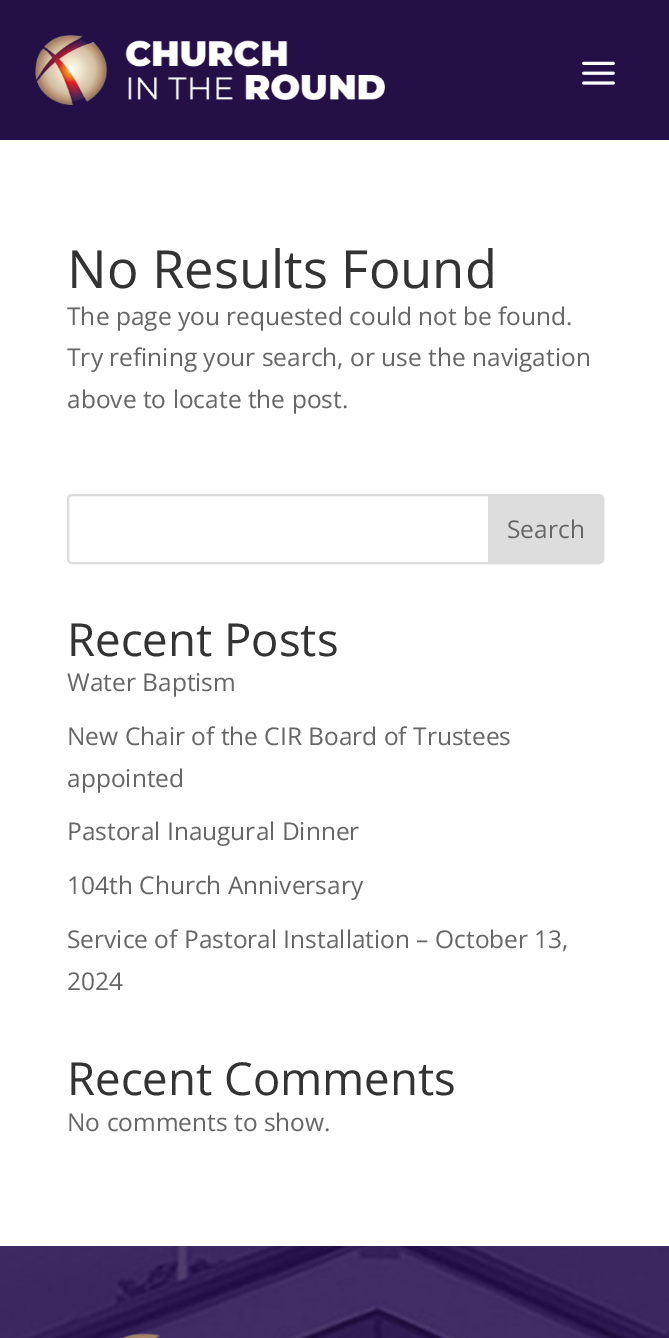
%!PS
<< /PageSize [669 1338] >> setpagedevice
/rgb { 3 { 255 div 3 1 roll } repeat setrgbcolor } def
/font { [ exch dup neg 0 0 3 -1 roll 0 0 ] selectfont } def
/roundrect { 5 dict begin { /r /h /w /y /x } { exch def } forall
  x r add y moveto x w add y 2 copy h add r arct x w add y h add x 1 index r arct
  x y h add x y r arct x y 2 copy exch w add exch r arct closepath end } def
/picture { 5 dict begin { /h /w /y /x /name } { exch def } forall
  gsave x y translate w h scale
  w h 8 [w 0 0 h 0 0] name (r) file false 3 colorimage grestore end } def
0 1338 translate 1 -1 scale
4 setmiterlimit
255 255 255 rgb
0 0 669 1338 rectfill
36 16 71 rgb
0 0 669 140 rectfill
(img/1.rgb) 35 35 350 70 picture
(img/2.rgb) 582 61 33 24 picture
221 221 221 rgb
2 setlinewidth
68 495 535 68 4 roundrect stroke
489 495 moveto 599 495 lineto 601 495 603 497 603 499 curveto 603 559 lineto 603 561 601 563 599 563 curveto 489 563 lineto closepath gsave fill grestore
stroke
(img/3.rgb) 0 1246 669 92 picture
(img/4.rgb) 122 1333 38 5 picture
/OpenSans-Regular 52.5 font
51 51 51 rgb
67 288 moveto (No Results Found) show
/OpenSans-Regular 24.5 font
102 102 102 rgb
[
  [(The page you requested could not be found.) 67 325]
  [(Try refining your search, or use the navigation) 67 366]
  [(above to locate the post.) 67 408]
  [(Search) 507 538]
] { aload pop moveto show } forall
/OpenSans-Regular 45.5 font
51 51 51 rgb
67 656 moveto (Recent Posts) show
/OpenSans-Regular 24.5 font
102 102 102 rgb
[
  [(Water Baptism) 67 691]
  [(New Chair of the CIR Board of Trustees) 67 745]
  [(appointed) 67 787]
  [(Pastoral Inaugural Dinner) 67 840]
  [(104th Church Anniversary) 67 894]
  [(Service of Pastoral Installation – October 13,) 67 948]
  [(2024) 67 990]
] { aload pop moveto show } forall
/OpenSans-Regular 45.5 font
51 51 51 rgb
67 1095 moveto (Recent Comments) show
/OpenSans-Regular 24.5 font
102 102 102 rgb
67 1131 moveto (No comments to show.) show
showpage
